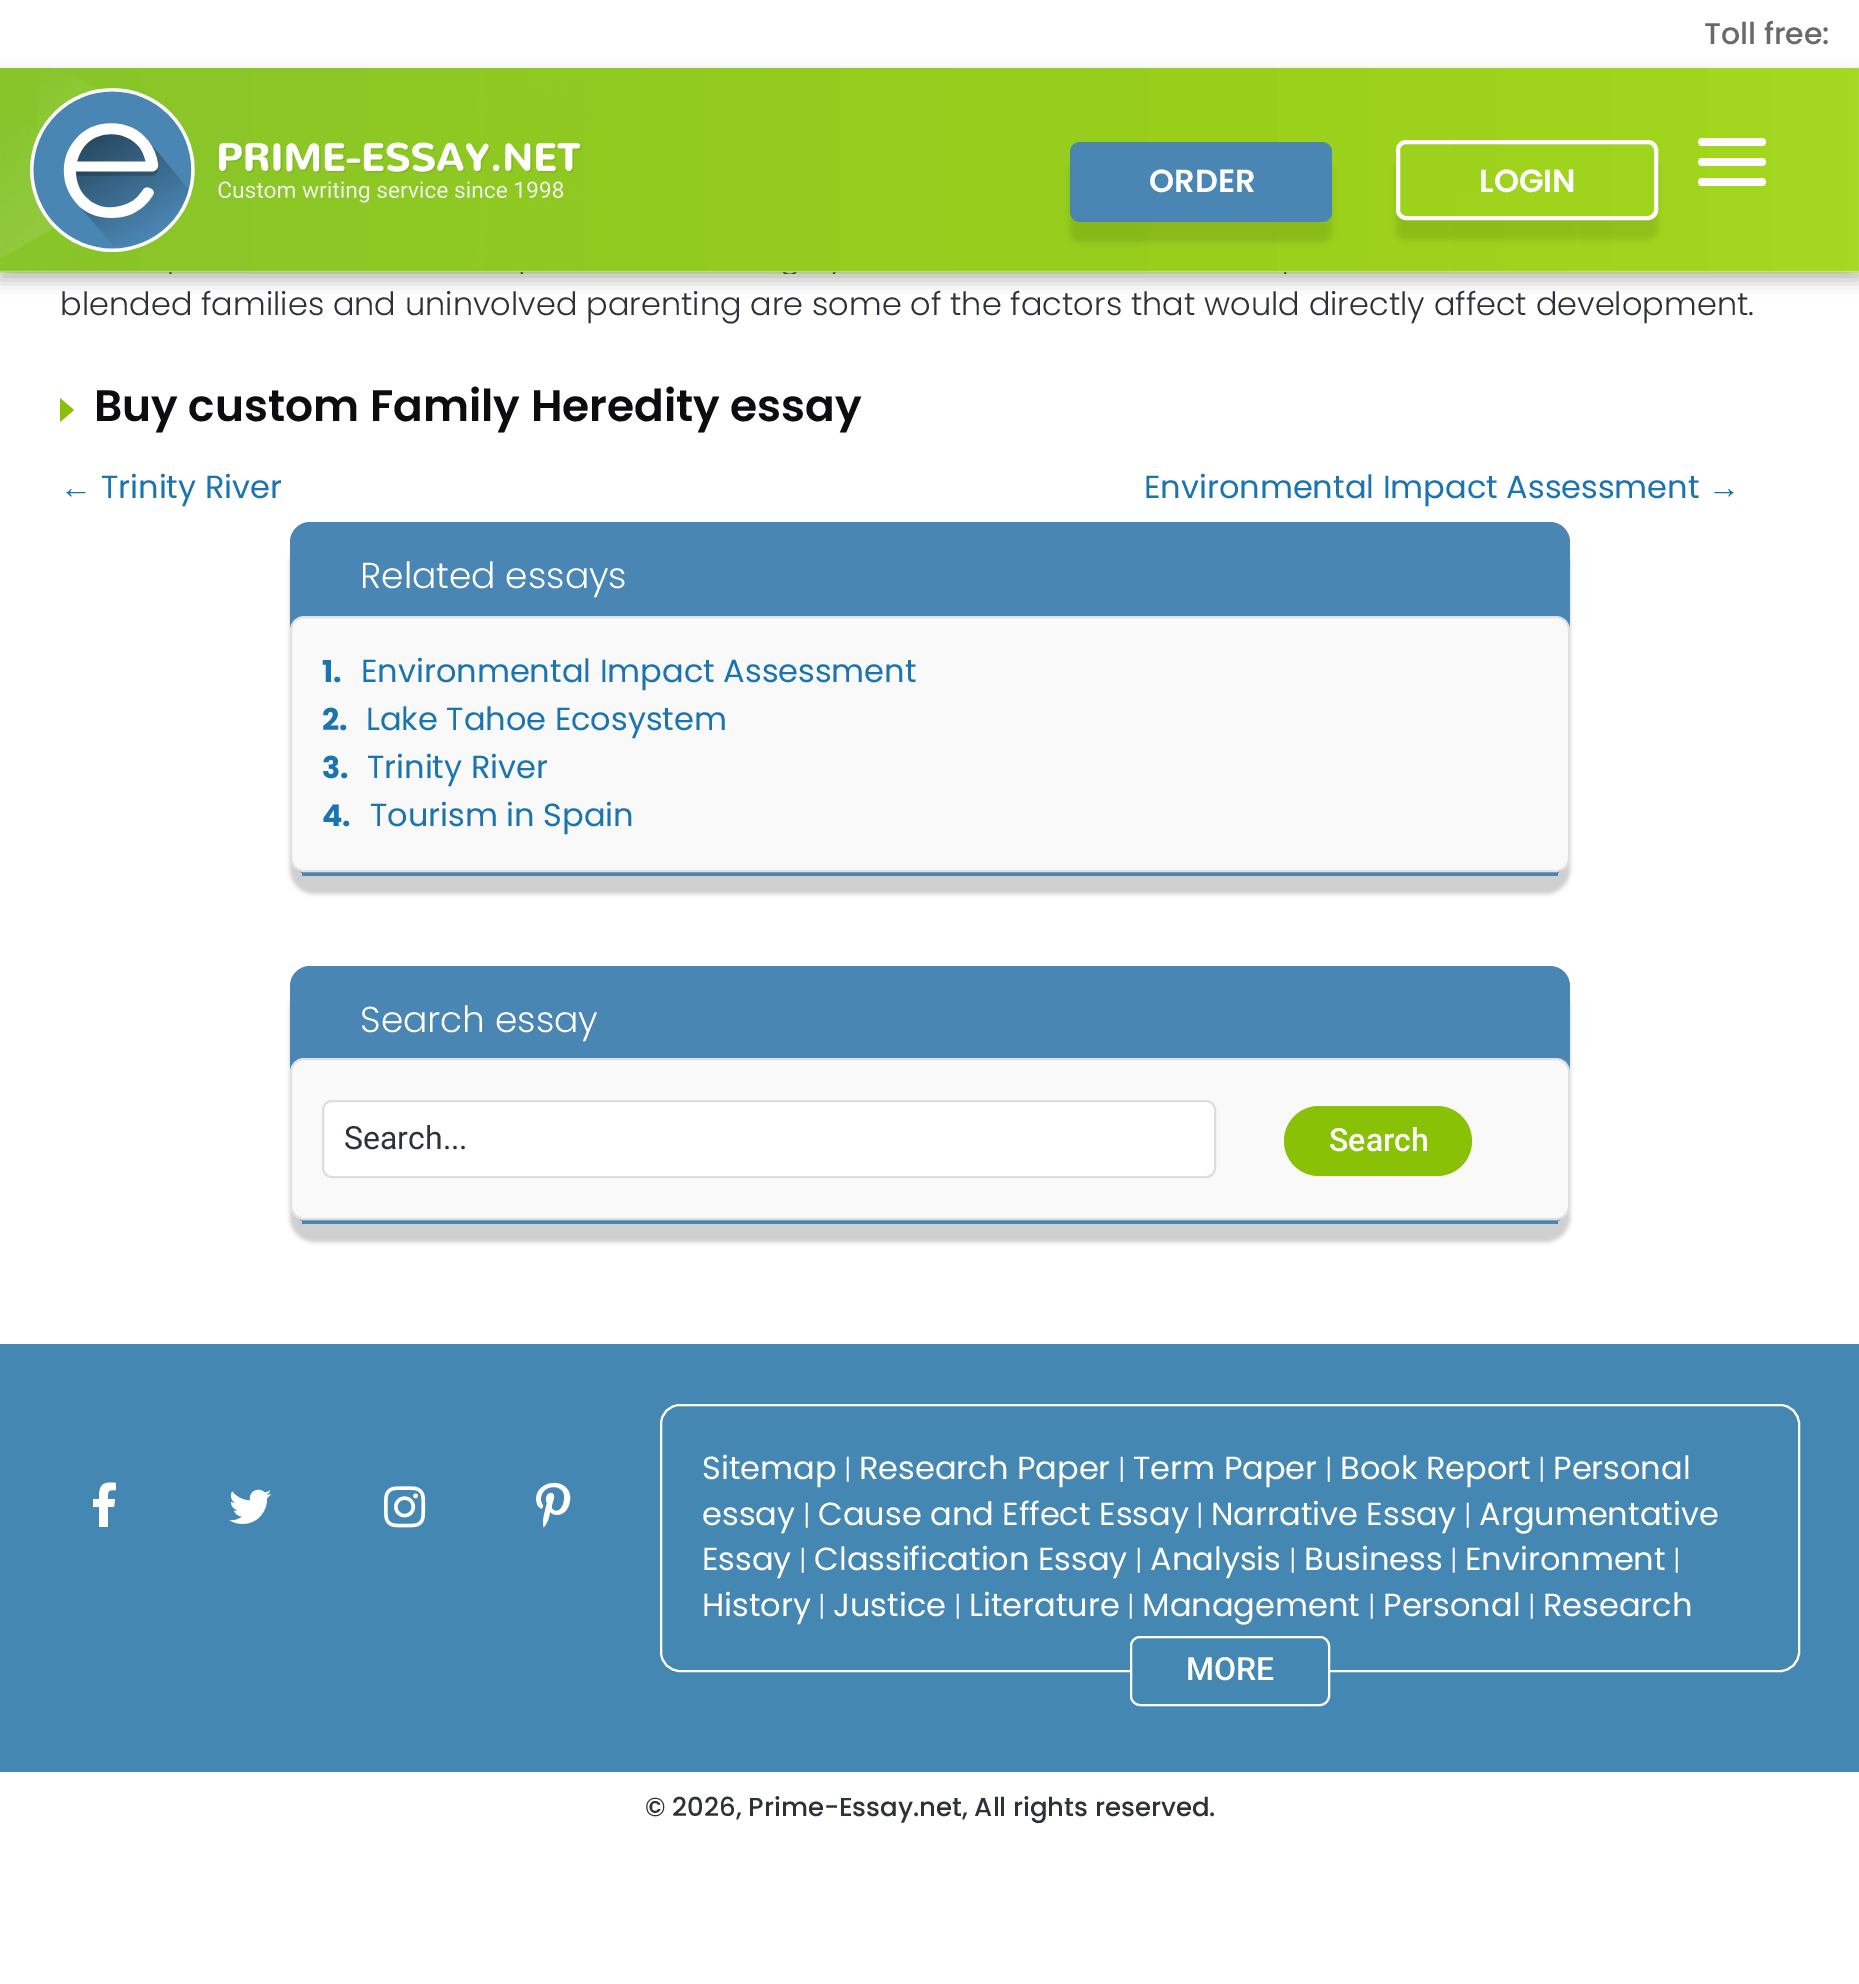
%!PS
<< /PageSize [1859 1984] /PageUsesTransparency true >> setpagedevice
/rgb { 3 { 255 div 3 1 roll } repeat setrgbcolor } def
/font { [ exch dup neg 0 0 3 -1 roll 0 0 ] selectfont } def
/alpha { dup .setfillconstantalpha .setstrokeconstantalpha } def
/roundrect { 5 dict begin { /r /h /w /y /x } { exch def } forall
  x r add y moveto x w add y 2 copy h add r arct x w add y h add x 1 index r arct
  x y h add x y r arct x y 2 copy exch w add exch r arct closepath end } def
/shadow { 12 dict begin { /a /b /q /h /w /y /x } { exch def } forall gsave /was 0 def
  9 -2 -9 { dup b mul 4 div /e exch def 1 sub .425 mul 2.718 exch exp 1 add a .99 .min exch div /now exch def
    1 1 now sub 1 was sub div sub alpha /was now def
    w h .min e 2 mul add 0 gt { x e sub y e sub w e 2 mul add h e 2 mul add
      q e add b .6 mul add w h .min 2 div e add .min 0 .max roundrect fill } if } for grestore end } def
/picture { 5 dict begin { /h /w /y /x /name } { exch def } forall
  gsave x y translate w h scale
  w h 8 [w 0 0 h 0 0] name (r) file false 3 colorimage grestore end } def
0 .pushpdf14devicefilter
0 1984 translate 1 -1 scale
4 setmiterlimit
255 255 255 rgb
0 0 1859 1984 rectfill
gsave
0 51 moveto 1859 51 lineto 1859 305 lineto 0 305 lineto closepath 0 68 moveto 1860 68 lineto 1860 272 lineto 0 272 lineto closepath eoclip newpath
0 0 0 rgb
0 76 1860 204 0 8 0.27 shadow
grestore
(img/1.rgb) 0 68 1859 206 picture
(img/2.rgb) 30 88 552 164 picture
0 0 0 rgb
1070 162 262 80 10 3 0.1 shadow
74 134 179 rgb
1070 142 262 80 10 roundrect fill
gsave
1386 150 moveto 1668 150 lineto 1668 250 lineto 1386 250 lineto closepath 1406 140 moveto 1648 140 lineto 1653.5 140 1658 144.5 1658 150 curveto 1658 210 lineto 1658 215.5 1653.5 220 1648 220 curveto 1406 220 lineto 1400.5 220 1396 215.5 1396 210 curveto 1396 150 lineto 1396 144.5 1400.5 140 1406 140 curveto closepath eoclip newpath
0 0 0 rgb
1396 160 262 80 10 3 0.1 shadow
grestore
255 255 255 rgb
4 setlinewidth
1398 142 258 76 8 roundrect stroke
1698 138 68 8 4 roundrect fill
1698 158 68 8 4 roundrect fill
1698 178 68 8 4 roundrect fill
137 193 6 rgb
60 422 moveto 60 398 lineto 74 410 lineto closepath fill
206 206 206 rgb
290 540 1280 354 24 2 1 shadow
74 134 179 rgb
310 522 moveto 1550 522 lineto 1561 522 1570 531 1570 542 curveto 1570 852 lineto 1570 865.5 1559.5 876 1546 876 curveto 314 876 lineto 300.5 876 290 865.5 290 852 curveto 290 542 lineto 290 531 299 522 310 522 curveto closepath fill
302 872 1256 4 rectfill
249 249 249 rgb
291 617 1278 254 13 roundrect gsave fill grestore
225 225 225 rgb
2 setlinewidth
stroke
206 206 206 rgb
290 984 1280 258 24 2 1 shadow
74 134 179 rgb
310 966 moveto 1550 966 lineto 1561 966 1570 975 1570 986 curveto 1570 1200 lineto 1570 1213.5 1559.5 1224 1546 1224 curveto 314 1224 lineto 300.5 1224 290 1213.5 290 1200 curveto 290 986 lineto 290 975 299 966 310 966 curveto closepath fill
302 1220 1256 4 rectfill
249 249 249 rgb
291 1059 1278 160 13 roundrect gsave fill grestore
225 225 225 rgb
stroke
255 255 255 rgb
323 1101 892 76 9 roundrect gsave fill grestore
221 221 221 rgb
stroke
137 193 6 rgb
1284 1106 188 70 35 roundrect fill
68 135 178 rgb
0 1344 1859 428 rectfill
255 255 255 rgb
116 1483 moveto 116 1490 lineto 107 1490 108 1491 108 1499 curveto 115 1499 lineto 114 1507 lineto 108 1507 lineto 108 1527 lineto 99 1527 lineto 99 1507 lineto 93 1507 lineto 93 1499 lineto 99 1499 lineto 99 1486 101 1481 116 1483 curveto closepath fill
(img/3.rgb) 229 1489 43 35 picture
(img/4.rgb) 384 1486 42 42 picture
(img/5.rgb) 536 1482 35 46 picture
661 1405 1138 266 19 roundrect stroke
68 135 178 rgb
1131 1637 198 68 9 roundrect gsave fill grestore
255 255 255 rgb
stroke
/Poppins-Medium 30 font
105 105 105 rgb
1704 44 moveto (Toll free:) show
/Poppins-SemiBold 32 font
255 255 255 rgb
1149 192 moveto (ORDER) show
1479 192 moveto (LOGIN) show
/Poppins-Light 32 font
47 49 58 rgb
60 315 moveto (blended families and uninvolved parenting are some of the factors that would directly affect development.) show
/Poppins-SemiBold 44 font
13 13 16 rgb
94 421 moveto (Buy custom Family Heredity essay) show
/LiberationSans-Regular 32 font
25 116 176 rgb
60 498 moveto (←) show
/Poppins-Regular 32 font
101 498 moveto (Trinity River) show
1144 498 moveto (Environmental Impact Assessment) show
/LiberationSans-Regular 32 font
1708 498 moveto (→) show
/Poppins-Light 36 font
255 255 255 rgb
360 588 moveto (Related essays) show
/Poppins-Bold 30 font
25 116 176 rgb
322 682 moveto (1.) show
/Poppins-Regular 32 font
361 682 moveto (Environmental Impact Assessment) show
/Poppins-Bold 30 font
322 730 moveto (2.) show
/Poppins-Regular 32 font
366 730 moveto (Lake Tahoe Ecosystem) show
/Poppins-Bold 30 font
322 778 moveto (3.) show
/Poppins-Regular 32 font
367 778 moveto (Trinity River) show
/Poppins-Bold 30 font
322 826 moveto (4.) show
/Poppins-Regular 32 font
370 826 moveto (Tourism in Spain) show
/Poppins-Light 36 font
255 255 255 rgb
360 1032 moveto (Search essay) show
/Roboto-Regular 32 font
47 49 58 rgb
344 1149 moveto (Search...) show
/Roboto-Medium 32 font
255 255 255 rgb
1329 1151 moveto (Search) show
/Poppins-Regular 32 font
702 1479 moveto (Sitemap) show
/Poppins-Light 28 font
844 1479 moveto (|) show
/Poppins-Regular 32 font
859 1479 moveto (Research Paper) show
/Poppins-Light 28 font
1118 1479 moveto (|) show
/Poppins-Regular 32 font
1133 1479 moveto (Term Paper) show
/Poppins-Light 28 font
1325 1479 moveto (|) show
/Poppins-Regular 32 font
1340 1479 moveto (Book Report) show
/Poppins-Light 28 font
1538 1479 moveto (|) show
/Poppins-Regular 32 font
1553 1479 moveto (Personal) show
702 1525 moveto (essay) show
/Poppins-Light 28 font
803 1525 moveto (|) show
/Poppins-Regular 32 font
818 1525 moveto (Cause and Effect Essay) show
/Poppins-Light 28 font
1196 1525 moveto (|) show
/Poppins-Regular 32 font
1211 1525 moveto (Narrative Essay) show
/Poppins-Light 28 font
1464 1525 moveto (|) show
/Poppins-Regular 32 font
1479 1525 moveto (Argumentative) show
702 1570 moveto (Essay) show
/Poppins-Light 28 font
799 1570 moveto (|) show
/Poppins-Regular 32 font
814 1570 moveto (Classification Essay) show
/Poppins-Light 28 font
1135 1570 moveto (|) show
/Poppins-Regular 32 font
1150 1570 moveto (Analysis) show
/Poppins-Light 28 font
1289 1570 moveto (|) show
/Poppins-Regular 32 font
1304 1570 moveto (Business) show
/Poppins-Light 28 font
1450 1570 moveto (|) show
/Poppins-Regular 32 font
1465 1570 moveto (Environment) show
/Poppins-Light 28 font
1673 1570 moveto (|) show
/Poppins-Regular 32 font
702 1616 moveto (History) show
/Poppins-Light 28 font
818 1616 moveto (|) show
/Poppins-Regular 32 font
833 1616 moveto (Justice) show
/Poppins-Light 28 font
954 1616 moveto (|) show
/Poppins-Regular 32 font
969 1616 moveto (Literature) show
/Poppins-Light 28 font
1127 1616 moveto (|) show
/Poppins-Regular 32 font
1142 1616 moveto (Management) show
/Poppins-Light 28 font
1368 1616 moveto (|) show
/Poppins-Regular 32 font
1383 1616 moveto (Personal) show
/Poppins-Light 28 font
1528 1616 moveto (|) show
/Poppins-Regular 32 font
1543 1616 moveto (Research) show
/Roboto-Medium 32 font
1186 1680 moveto (MORE) show
/Poppins-Medium 26 font
47 49 58 rgb
645 1816 moveto (© 2026, Prime-Essay.net, All rights reserved.) show
.poppdf14devicefilter showpage
